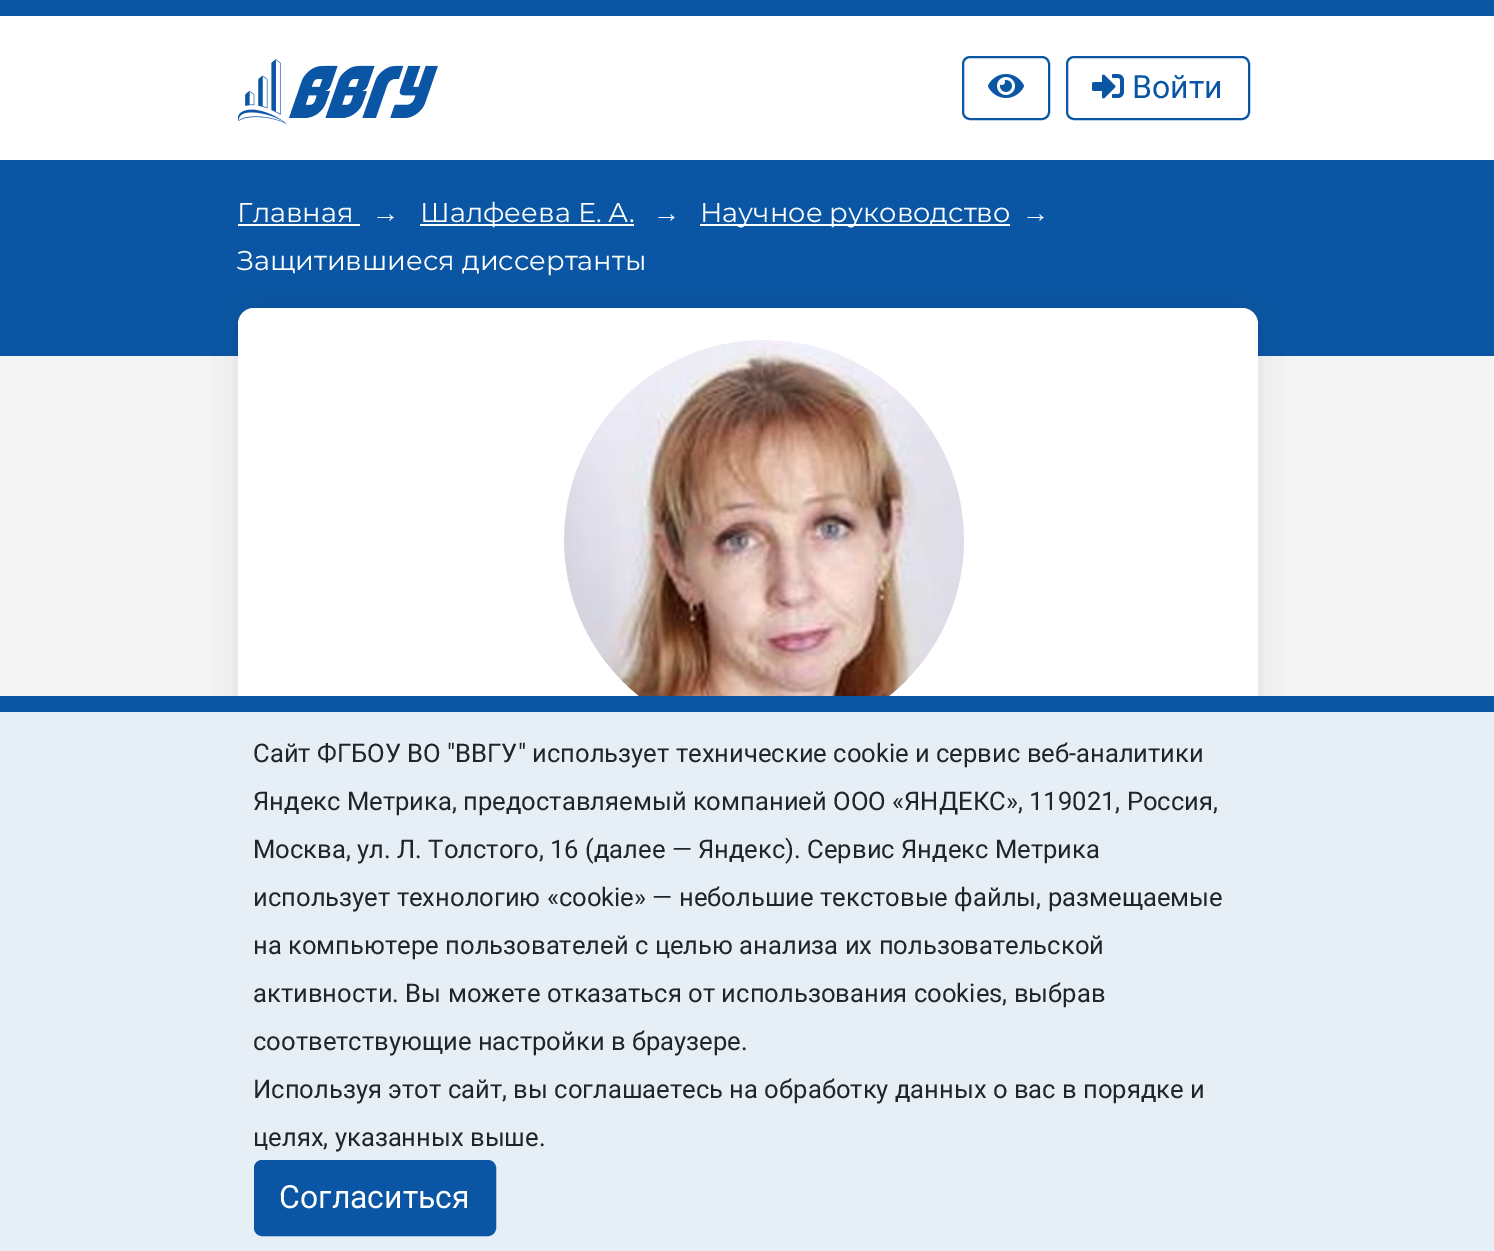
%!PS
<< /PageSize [1494 1251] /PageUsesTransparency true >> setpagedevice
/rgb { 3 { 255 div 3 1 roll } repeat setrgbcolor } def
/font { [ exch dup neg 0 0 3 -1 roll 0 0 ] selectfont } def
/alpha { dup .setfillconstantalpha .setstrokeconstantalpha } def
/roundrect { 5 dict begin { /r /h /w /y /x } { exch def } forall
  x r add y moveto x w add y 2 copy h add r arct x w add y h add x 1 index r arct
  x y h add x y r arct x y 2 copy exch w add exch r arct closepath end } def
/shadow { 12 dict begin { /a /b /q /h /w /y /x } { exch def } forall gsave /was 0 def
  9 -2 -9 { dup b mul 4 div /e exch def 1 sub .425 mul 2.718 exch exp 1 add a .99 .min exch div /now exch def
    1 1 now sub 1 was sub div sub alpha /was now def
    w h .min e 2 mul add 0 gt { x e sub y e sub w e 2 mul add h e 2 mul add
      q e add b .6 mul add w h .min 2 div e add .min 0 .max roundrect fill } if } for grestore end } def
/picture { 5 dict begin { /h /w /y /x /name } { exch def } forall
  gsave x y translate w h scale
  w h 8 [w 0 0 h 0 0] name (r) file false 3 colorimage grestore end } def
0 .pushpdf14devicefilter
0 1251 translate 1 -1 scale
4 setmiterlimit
245 245 245 rgb
0 0 1494 1251 rectfill
10 86 164 rgb
0 0 1494 16 rectfill
255 255 255 rgb
0 16 1494 144 rectfill
(img/1.rgb) 238 59 200 66 picture
10 86 164 rgb
2 setlinewidth
963 57 86 62 7 roundrect stroke
(img/2.rgb) 988 74 36 24 picture
1067 57 182 62 7 roundrect stroke
(img/3.rgb) 1092 74 32 25 picture
[
  [0 160 1494 196 10 86 165]
  [238 224 122 2 255 255 255]
  [420 224 214 2 255 255 255]
  [700 224 310 2 255 255 255]
] { aload pop rgb rectfill } forall
0 0 0 rgb
238 308 1020 840 16 20 0.09 shadow
255 255 255 rgb
238 308 1020 840 16 roundrect fill
(img/4.rgb) 564 340 400 356 picture
230 238 246 rgb
0 712 1494 539 rectfill
10 86 164 rgb
0 696 1494 16 rectfill
255 1161 240 74 7 roundrect gsave fill grestore
stroke
/Roboto-Regular 32 font
1132 98 moveto (Войти) show
/Montserrat-Regular 27.25 font
255 255 255 rgb
237 222 moveto (Главная) show
/LiberationSans-Regular 27.25 font
372 222 moveto (→) show
/Montserrat-Regular 27.25 font
420 222 moveto (Шалфеева Е. А.) show
/LiberationSans-Regular 27.25 font
653 222 moveto (→) show
/Montserrat-Regular 27.25 font
700 222 moveto (Научное руководство) show
/LiberationSans-Regular 27.25 font
1022 222 moveto (→) show
/Montserrat-Regular 27.25 font
237 270 moveto (Защитившиеся диссертанты) show
/Roboto-Regular 25.6 font
33 37 41 rgb
[
  [(Cайт ФГБОУ ВО "ВВГУ" использует технические cookie и сервис веб-аналитики) 253 762]
  [(Яндекс Метрика, предоставляемый компанией ООО «ЯНДЕКС», 119021, Россия,) 253 810]
  [(Москва, ул. Л. Толстого, 16 \(далее — Яндекс\). Сервис Яндекс Метрика) 253 858]
  [(использует технологию «cookie» — небольшие текстовые файлы, размещаемые) 253 906]
  [(на компьютере пользователей с целью анализа их пользовательской) 253 954]
  [(активности. Вы можете отказаться от использования cookies, выбрав) 253 1002]
  [(соответствующие настройки в браузере.) 253 1050]
  [(Используя этот сайт, вы соглашаетесь на обработку данных о вас в порядке и) 253 1098]
  [(целях, указанных выше.) 253 1146]
] { aload pop moveto show } forall
/Roboto-Regular 32 font
255 255 255 rgb
279 1208 moveto (Согласиться) show
.poppdf14devicefilter showpage
